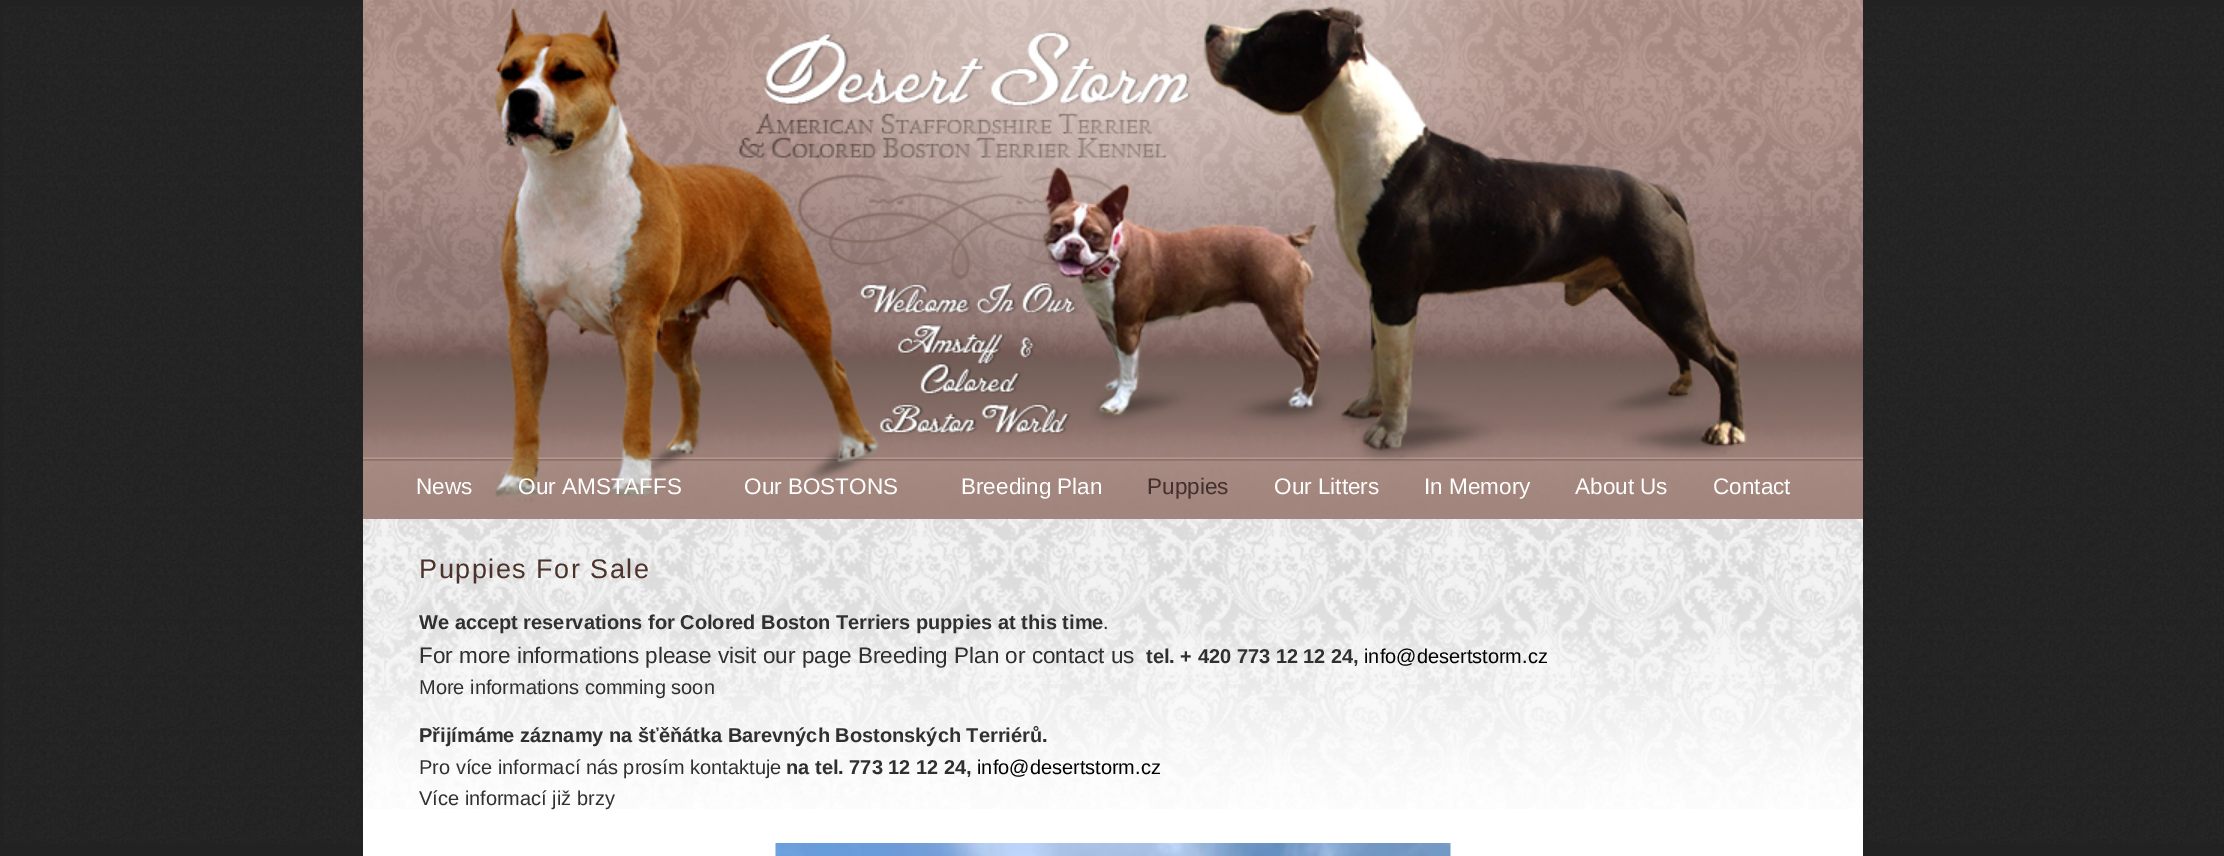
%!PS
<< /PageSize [2224 856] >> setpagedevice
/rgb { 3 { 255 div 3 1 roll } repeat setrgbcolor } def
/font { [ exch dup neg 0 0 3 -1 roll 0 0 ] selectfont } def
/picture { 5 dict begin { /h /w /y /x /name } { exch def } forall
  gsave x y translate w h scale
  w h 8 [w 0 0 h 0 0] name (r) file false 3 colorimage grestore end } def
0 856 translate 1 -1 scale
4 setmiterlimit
34 34 34 rgb
0 0 2224 856 rectfill
(img/1.rgb) 3 7 2221 837 picture
(img/2.rgb) 363 0 1500 519 picture
255 255 255 rgb
363 809 1500 47 rectfill
(img/3.rgb) 363 519 1500 290 picture
(img/4.rgb) 775 843 676 13 picture
/LiberationSans-Regular 22.5 font
[
  [(News) 416 494]
  [(Our AMSTAFFS) 518 494]
  [(Our BOSTONS) 744 494]
  [(Breeding Plan) 961 494]
] { aload pop moveto show } forall
66 48 45 rgb
1147 494 moveto (Puppies) show
255 255 255 rgb
[
  [(Our Litters) 1274 494]
  [(In Memory) 1424 494]
  [(About Us) 1575 494]
  [(Contact) 1713 494]
] { aload pop moveto show } forall
/LiberationSans-Regular 27 font
75 50 42 rgb
419 578 moveto 1.5 0 (Puppies For Sale) ashow
/LiberationSans-Bold 20 font
48 48 47 rgb
419 629 moveto (We accept reservations for Colored Boston Terriers puppies at this time) show
/LiberationSans-Regular 20 font
1103 629 moveto (.) show
/LiberationSans-Regular 22.5 font
419 663 moveto (For more informations please visit our page Breeding Plan or contact us) show
/LiberationSans-Bold 20 font
1146 663 moveto (tel. + 420 773 12 12 24,) show
/LiberationSans-Regular 20 font
0 0 0 rgb
1364 663 moveto (info@desertstorm.cz) show
48 48 47 rgb
419 694 moveto (More informations comming soon) show
/LiberationSans-Bold 20 font
419 742 moveto (Přijímáme záznamy na šťěňátka Barevných Bostonských Terriérů.) show
/LiberationSans-Regular 20 font
419 774 moveto (Pro více informací nás prosím kontaktuje) show
/LiberationSans-Bold 20 font
786 774 moveto (na tel. 773 12 12 24,) show
/LiberationSans-Regular 20 font
0 0 0 rgb
977 774 moveto (info@desertstorm.cz) show
48 48 47 rgb
419 805 moveto (Více informací již brzy) show
showpage
